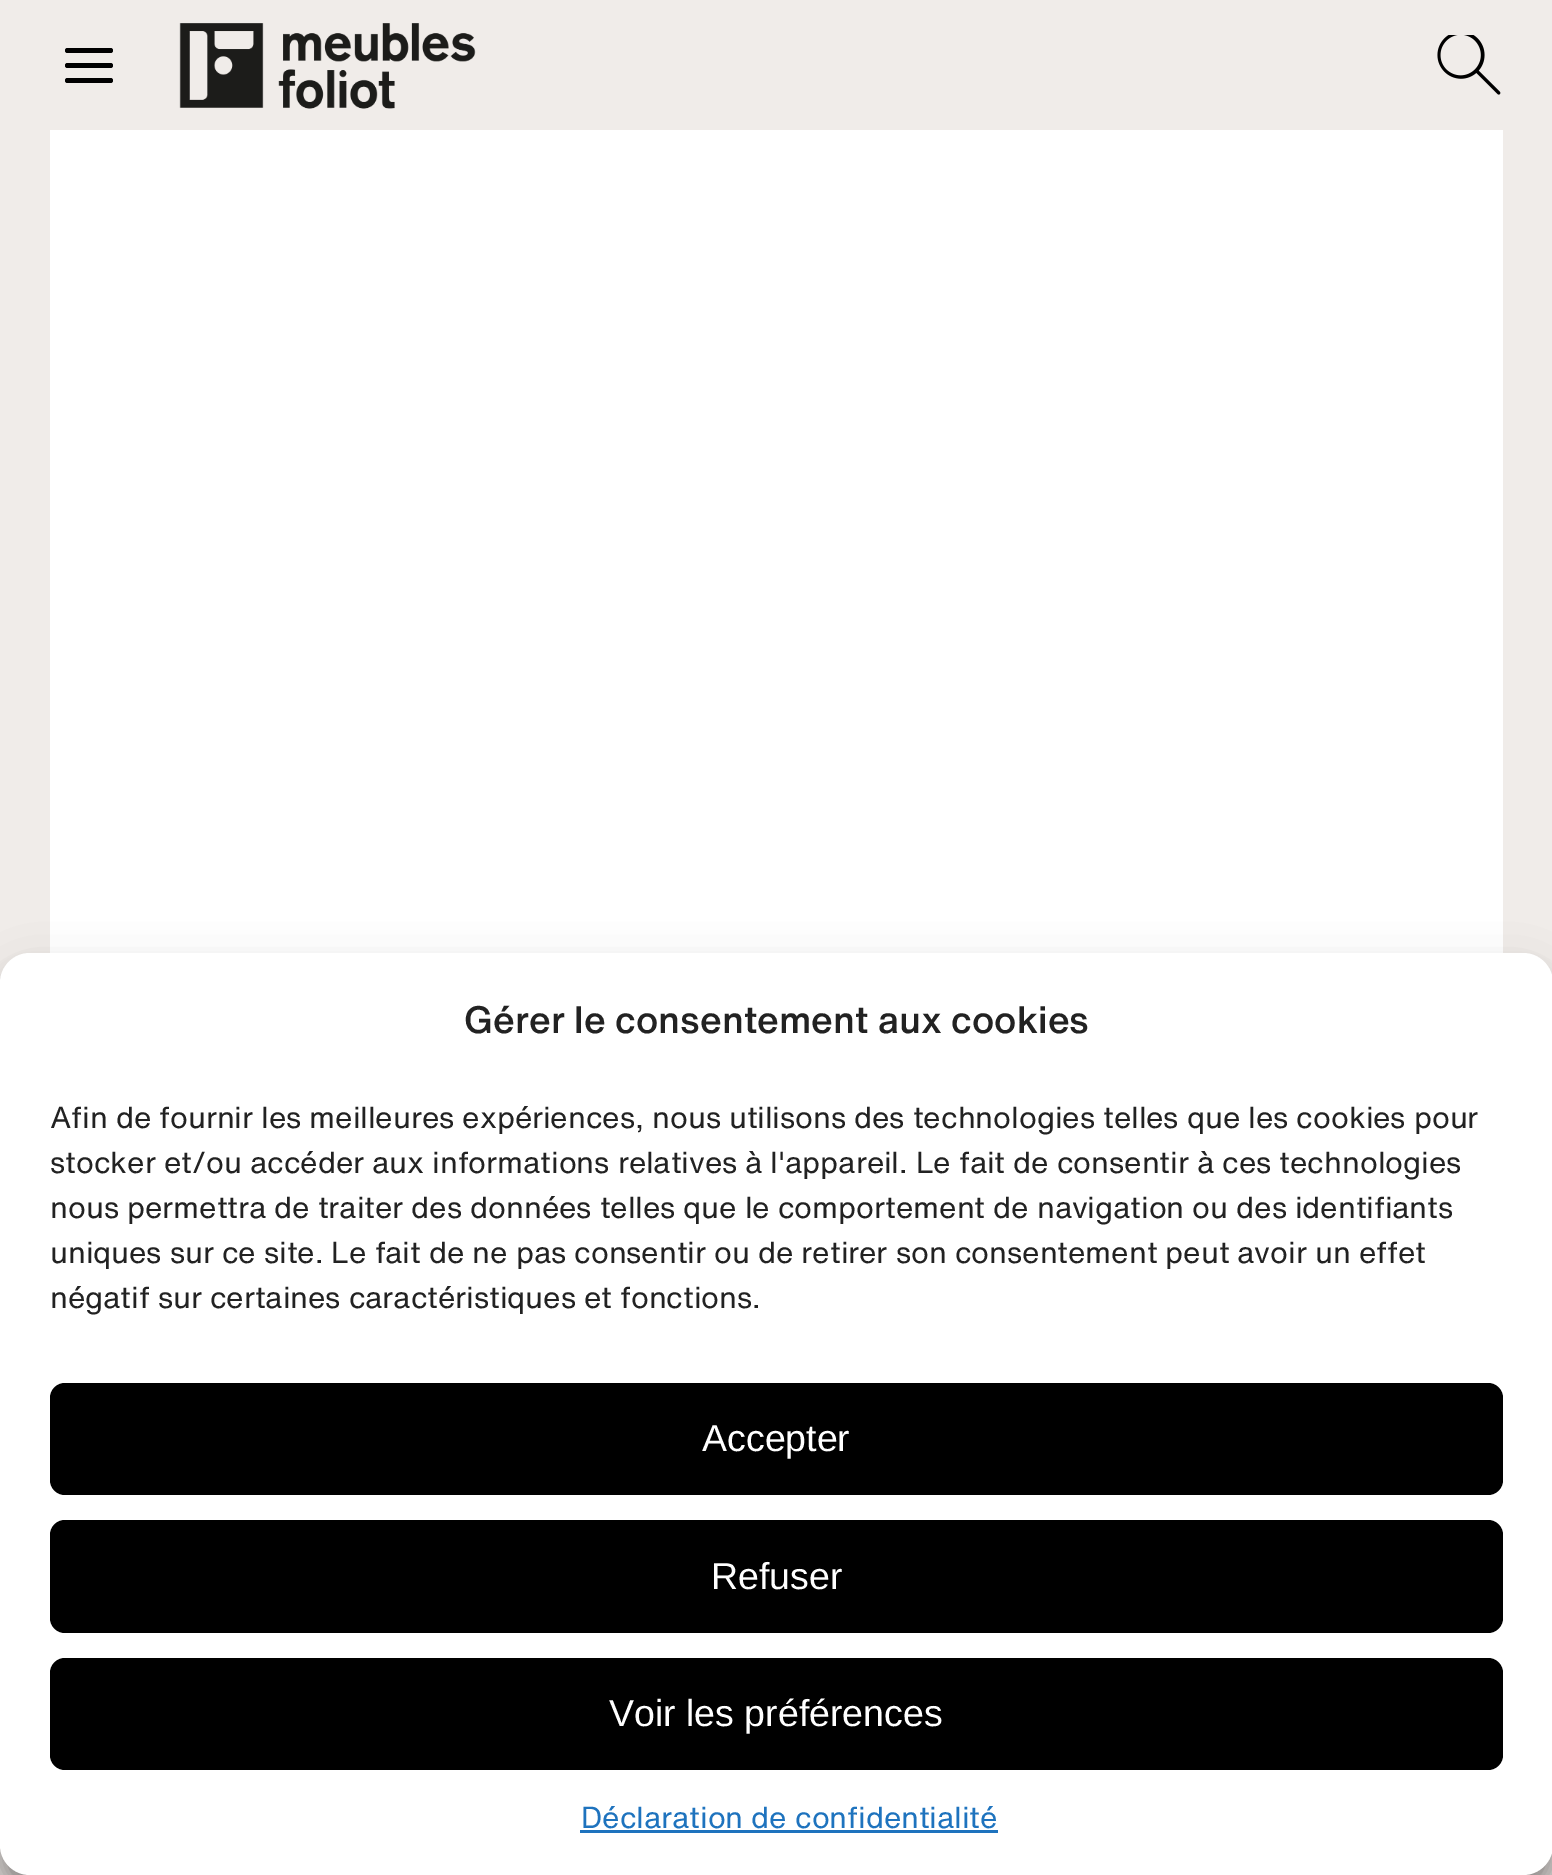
%!PS
<< /PageSize [1552 1875] /PageUsesTransparency true >> setpagedevice
/rgb { 3 { 255 div 3 1 roll } repeat setrgbcolor } def
/font { [ exch dup neg 0 0 3 -1 roll 0 0 ] selectfont } def
/alpha { dup .setfillconstantalpha .setstrokeconstantalpha } def
/roundrect { 5 dict begin { /r /h /w /y /x } { exch def } forall
  x r add y moveto x w add y 2 copy h add r arct x w add y h add x 1 index r arct
  x y h add x y r arct x y 2 copy exch w add exch r arct closepath end } def
/shadow { 12 dict begin { /a /b /q /h /w /y /x } { exch def } forall gsave /was 0 def
  9 -2 -9 { dup b mul 4 div /e exch def 1 sub .425 mul 2.718 exch exp 1 add a .99 .min exch div /now exch def
    1 1 now sub 1 was sub div sub alpha /was now def
    w h .min e 2 mul add 0 gt { x e sub y e sub w e 2 mul add h e 2 mul add
      q e add b .6 mul add w h .min 2 div e add .min 0 .max roundrect fill } if } for grestore end } def
/picture { 5 dict begin { /h /w /y /x /name } { exch def } forall
  gsave x y translate w h scale
  w h 8 [w 0 0 h 0 0] name (r) file false 3 colorimage grestore end } def
0 .pushpdf14devicefilter
0 1875 translate 1 -1 scale
4 setmiterlimit
240 236 233 rgb
0 0 1552 1875 rectfill
0 0 0 rgb
65 63 48 5 2.5 roundrect fill
65 48 48 5 2.5 roundrect fill
65 78 48 5 2.5 roundrect fill
(img/1.rgb) 179 23 297 86 picture
(img/2.rgb) 1437 35 64 60 picture
255 255 255 rgb
50 130 1453 823 rectfill
228 224 221 rgb
0 1845 1552 30 rectfill
0 0 0 rgb
0 968 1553 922 30 7.5 0.23 shadow
0 978 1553 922 30 25 0.19 shadow
255 255 255 rgb
0 953 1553 922 30 roundrect fill
0 0 0 rgb
50 1383 1453 112 15 roundrect fill
50 1520 1453 113 15 roundrect fill
50 1658 1453 112 15 roundrect fill
30 115 190 rgb
580 1830 418 3 rectfill
/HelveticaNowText-Medium 37.5 font
34 34 34 rgb
464 1033 moveto (Gérer le consentement aux cookies) show
/HelveticaNowText-Regular 30 font
[
  [(Afin de fournir les meilleures expériences, nous utilisons des technologies telles que les cookies pour) 50 1128]
  [(stocker et/ou accéder aux informations relatives à l'appareil. Le fait de consentir à ces technologies) 50 1173]
  [(nous permettra de traiter des données telles que le comportement de navigation ou des identifiants) 50 1218]
  [(uniques sur ce site. Le fait de ne pas consentir ou de retirer son consentement peut avoir un effet) 50 1263]
  [(négatif sur certaines caractéristiques et fonctions.) 50 1308]
] { aload pop moveto show } forall
/LiberationSans-Regular 37.5 font
255 255 255 rgb
[
  [(Accepter) 702 1451]
  [(Refuser) 711 1589]
  [(Voir les préférences) 609 1726]
] { aload pop moveto show } forall
/HelveticaNowText-Regular 30 font
30 115 190 rgb
581 1828 moveto (Déclaration de confidentialité) show
.poppdf14devicefilter showpage
